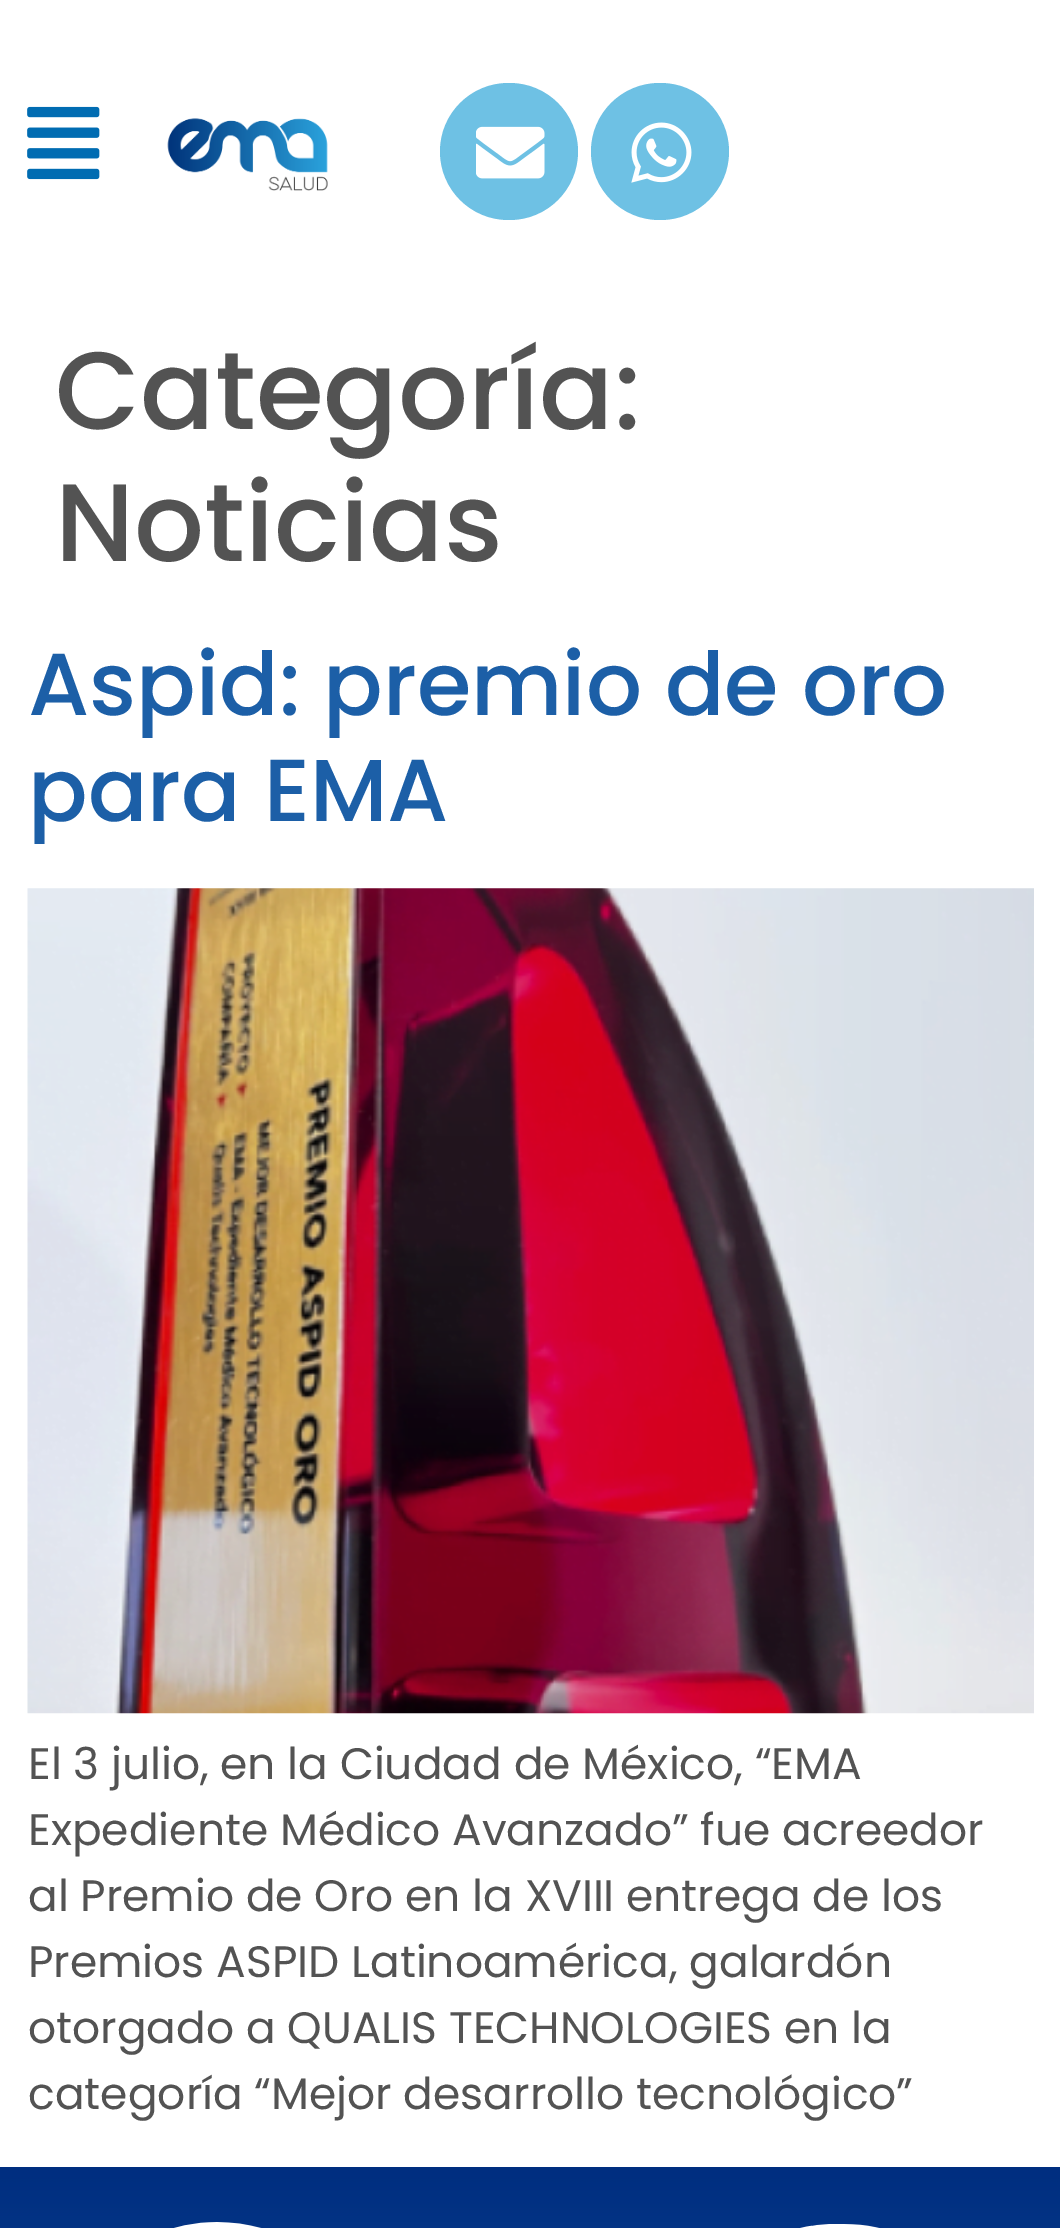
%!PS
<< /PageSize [1060 2228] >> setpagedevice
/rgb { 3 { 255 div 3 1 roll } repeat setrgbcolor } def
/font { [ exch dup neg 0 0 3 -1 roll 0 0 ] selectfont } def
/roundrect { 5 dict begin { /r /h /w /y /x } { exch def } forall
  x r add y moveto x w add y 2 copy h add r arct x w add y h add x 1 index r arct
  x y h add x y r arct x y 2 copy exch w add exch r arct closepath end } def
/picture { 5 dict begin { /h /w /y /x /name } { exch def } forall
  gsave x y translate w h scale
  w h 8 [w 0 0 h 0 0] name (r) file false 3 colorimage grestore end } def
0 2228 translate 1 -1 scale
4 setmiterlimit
255 255 255 rgb
0 0 1060 2228 rectfill
(img/1.rgb) 27 106 73 74 picture
(img/2.rgb) 167 118 161 73 picture
110 193 228 rgb
440 83 138 137 68.5 roundrect fill
(img/3.rgb) 476 126 69 53 picture
591 83 138 137 68.5 roundrect fill
(img/4.rgb) 631 122 61 61 picture
(img/5.rgb) 27 888 1007 826 picture
gsave 0 2167 moveto 1060 2167 lineto 1060 2228 lineto 0 2228 lineto closepath clip newpath
<< /ShadingType 2 /ColorSpace /DeviceRGB /Coords [531 2167 531 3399] /Extend [true true] /Function << /FunctionType 2 /Domain [0 1] /C0 [0 0.18 0.502] /C1 [0.231 0.592 0.827] /N 1 >> >> shfill grestore
(img/6.rgb) 174 2222 706 6 picture
/Poppins-Medium 110 font
83 83 83 rgb
55 429 moveto (Categoría:) show
55 561 moveto (Noticias) show
/Poppins-Medium 88 font
28 95 167 rgb
28 715 moveto (Aspid: premio de oro) show
28 821 moveto (para EMA) show
/Poppins-Regular 44 font
83 83 83 rgb
[
  [(El 3 julio, en la Ciudad de México, “EMA) 28 1779]
  [(Expediente Médico Avanzado” fue acreedor) 28 1845]
  [(al Premio de Oro en la XVIII entrega de los) 28 1911]
  [(Premios ASPID Latinoamérica, galardón) 28 1977]
  [(otorgado a QUALIS TECHNOLOGIES en la) 28 2043]
  [(categoría “Mejor desarrollo tecnológico”) 28 2109]
] { aload pop moveto show } forall
showpage
